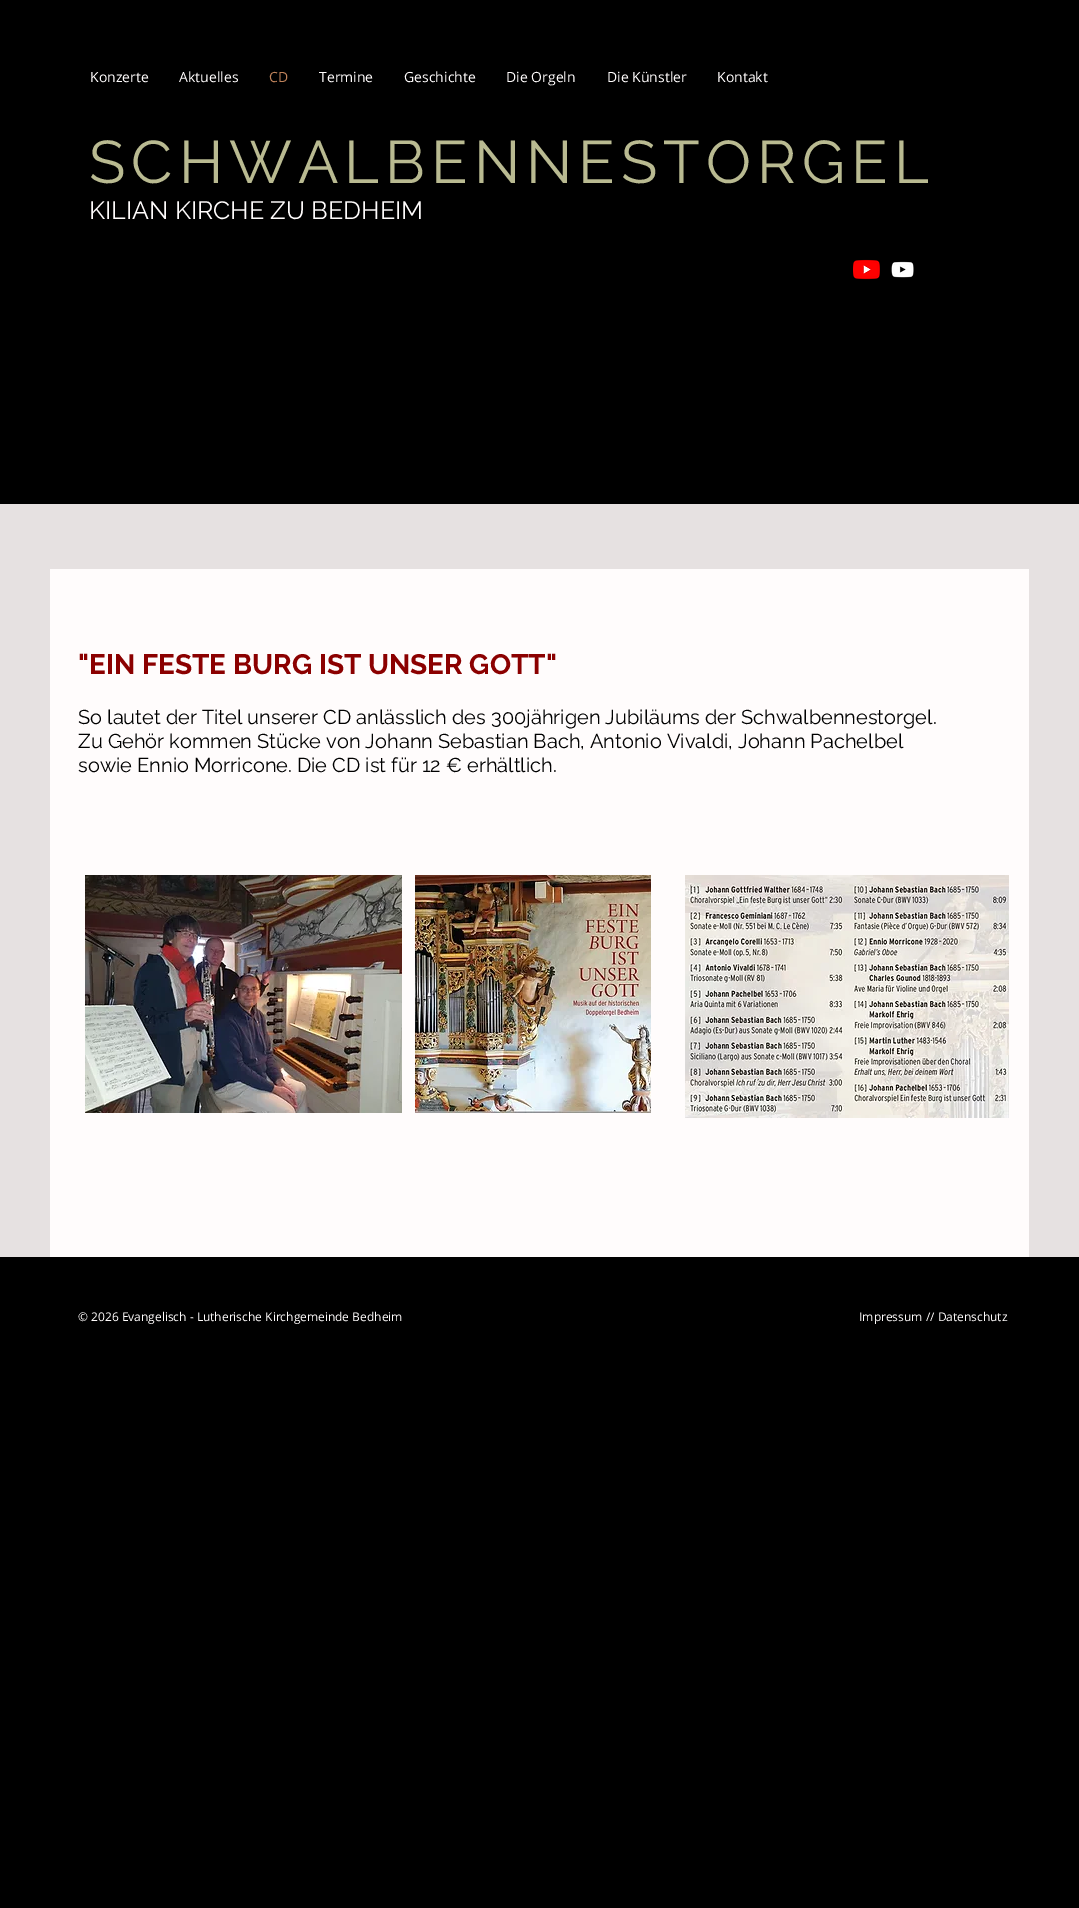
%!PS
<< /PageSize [1079 1908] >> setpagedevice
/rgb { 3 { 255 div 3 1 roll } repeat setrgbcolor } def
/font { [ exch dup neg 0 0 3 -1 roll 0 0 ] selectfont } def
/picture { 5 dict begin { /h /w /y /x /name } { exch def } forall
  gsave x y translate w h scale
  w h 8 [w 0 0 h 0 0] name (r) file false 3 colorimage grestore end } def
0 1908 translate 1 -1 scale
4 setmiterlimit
0 0 0 rgb
0 0 1079 1908 rectfill
(img/1.rgb) 853 259 27 21 picture
(img/2.rgb) 891 261 23 17 picture
230 225 225 rgb
0 504 1079 753 rectfill
255 252 252 rgb
50 569 979 688 rectfill
(img/3.rgb) 85 875 317 238 picture
(img/4.rgb) 415 875 236 238 picture
(img/5.rgb) 685 875 324 243 picture
/OpenSans-Regular 14 font
90 82 moveto (Konzerte) show
179 82 moveto (Aktuelles) show
191 130 90 rgb
269 82 moveto (CD) show
255 252 252 rgb
[
  [(Termine) 319 82]
  [(Geschichte) 404 82]
  [(Die Orgeln) 506 82]
  [(Die Künstler) 607 82]
  [(Kontakt) 717 82]
] { aload pop moveto show } forall
/Raleway-Regular 60 font
185 186 145 rgb
89 183 moveto 6 0 (SCHWALBENNESTORGEL) ashow
/Raleway-Regular 25 font
255 252 252 rgb
89 219 moveto (KILIAN KIRCHE ZU BEDHEIM) show
/Raleway-Bold 28 font
139 0 0 rgb
78 674 moveto ("EIN FESTE BURG IST UNSER GOTT") show
/Raleway-Regular 20 font
0 0 0 rgb
[
  [(So lautet der Titel unserer CD anlässlich des 300jährigen Jubiläums der Schwalbennestorgel.) 78 724]
  [(Zu Gehör kommen Stücke von Johann Sebastian Bach, Antonio Vivaldi, Johann Pachelbel) 78 748]
  [(sowie Ennio Morricone. Die CD ist für 12 € erhältlich.) 78 772]
] { aload pop moveto show } forall
/OpenSans-Regular 12 font
255 252 252 rgb
78 1321 moveto (© 2026 Evangelisch - Lutherische Kirchgemeinde Bedheim) show
859 1321 moveto (Impressum // Datenschutz) show
showpage
